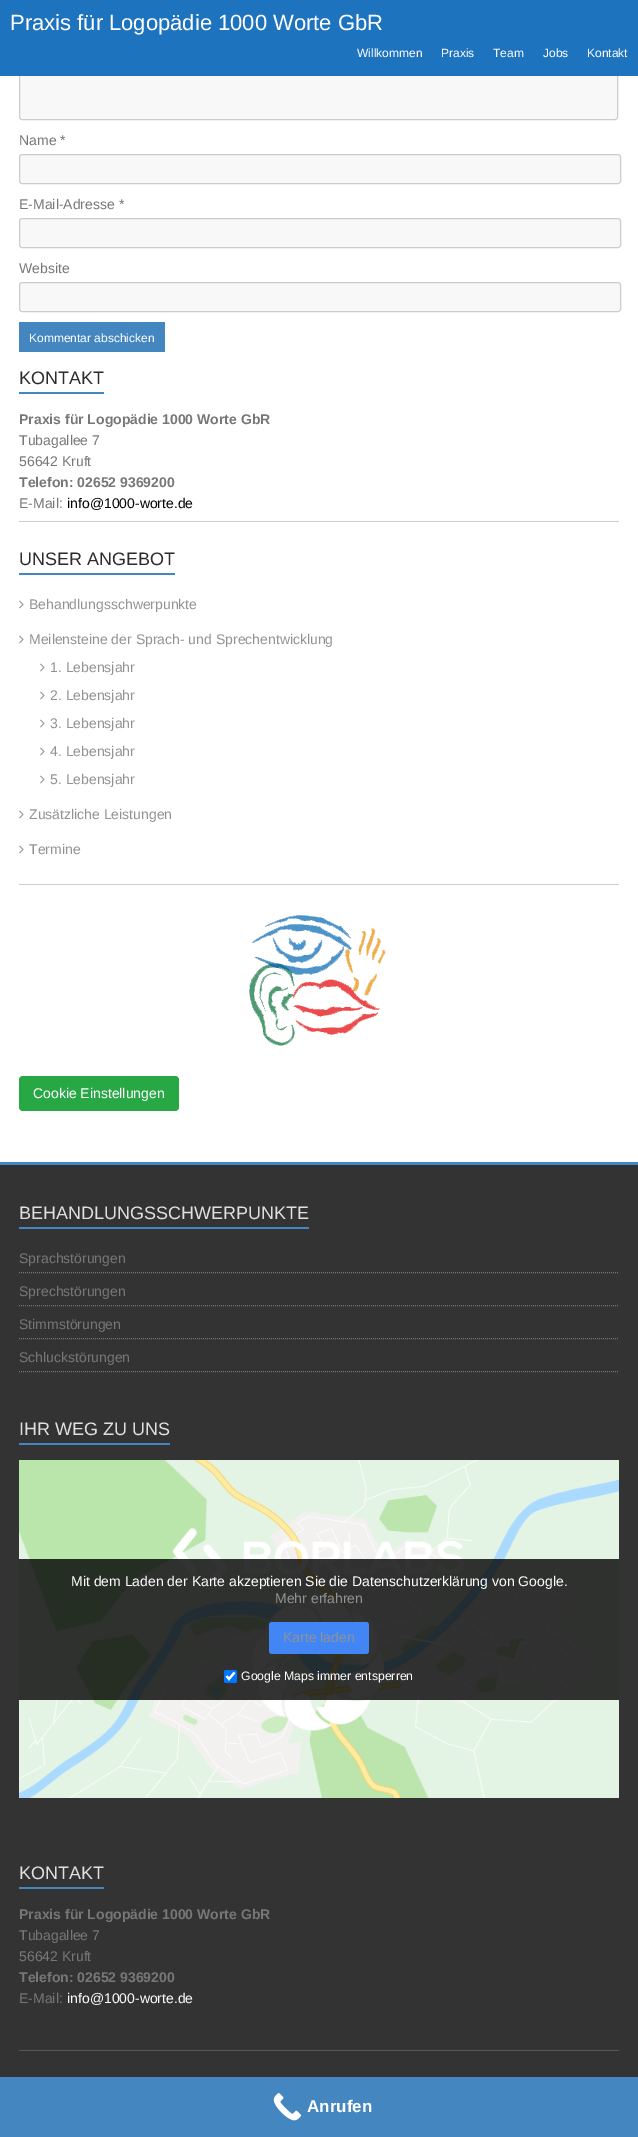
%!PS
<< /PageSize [638 2137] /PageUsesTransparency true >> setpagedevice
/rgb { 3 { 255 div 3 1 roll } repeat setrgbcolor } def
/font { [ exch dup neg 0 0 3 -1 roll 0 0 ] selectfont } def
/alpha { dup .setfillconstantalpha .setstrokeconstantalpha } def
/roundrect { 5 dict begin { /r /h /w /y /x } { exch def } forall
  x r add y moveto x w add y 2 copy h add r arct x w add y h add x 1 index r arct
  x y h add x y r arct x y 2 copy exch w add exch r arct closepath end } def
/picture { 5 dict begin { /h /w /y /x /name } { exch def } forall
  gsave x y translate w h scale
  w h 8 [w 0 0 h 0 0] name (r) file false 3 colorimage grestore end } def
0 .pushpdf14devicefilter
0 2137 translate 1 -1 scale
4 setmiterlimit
255 255 255 rgb
0 0 638 2137 rectfill
248 248 248 rgb
19.5 -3.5 598 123 2.5 roundrect gsave fill grestore
204 204 204 rgb
stroke
30 115 190 rgb
0 0 638 76 rectfill
248 248 248 rgb
19.5 154.5 601 29 2.5 roundrect gsave fill grestore
204 204 204 rgb
stroke
248 248 248 rgb
19.5 218.5 601 29 2.5 roundrect gsave fill grestore
204 204 204 rgb
stroke
248 248 248 rgb
19.5 282.5 601 29 2.5 roundrect gsave fill grestore
204 204 204 rgb
stroke
[
  [19 322 146 30 68 134 191]
  [19 392 85 2 68 134 191]
  [19 521 600 1 204 204 204]
  [19 573 156 2 68 134 191]
] { aload pop rgb rectfill } forall
(img/1.rgb) 19 600 5 9 picture
(img/1.rgb) 19 635 5 9 picture
(img/1.rgb) 40 663 5 9 picture
(img/1.rgb) 40 691 5 9 picture
(img/1.rgb) 40 719 5 9 picture
(img/1.rgb) 40 747 5 9 picture
(img/1.rgb) 40 775 5 9 picture
(img/1.rgb) 19 810 5 9 picture
(img/1.rgb) 19 845 5 9 picture
204 204 204 rgb
19 884 600 1 rectfill
(img/2.rgb) 249 915 137 131 picture
40 167 69 rgb
19 1076 160 35 4 roundrect fill
[
  [0 1165 638 912 51 51 51]
  [0 1162 638 3 68 134 191]
  [19 1227 290 2 68 134 191]
] { aload pop rgb rectfill } forall
119 119 119 rgb
[1 1] 0 setdash
19 1272.5 moveto 619 1272.5 lineto stroke
19 1305.5 moveto 619 1305.5 lineto stroke
19 1338.5 moveto 619 1338.5 lineto stroke
19 1371.5 moveto 619 1371.5 lineto stroke
68 134 191 rgb
19 1443 151 2 rectfill
(img/3.rgb) 19 1460 600 338 picture
0.8 alpha
0 0 0 rgb
19 1559 600 141 rectfill
1 alpha
66 133 244 rgb
269 1622 100 32 3 roundrect fill
0 117 255 rgb
224 1670 13 13 2 roundrect fill
255 255 255 rgb
2.1 setlinewidth
[] 0 setdash
226.5 1676 moveto 229 1679 lineto 234.5 1672.5 lineto stroke
[
  [19 1887 85 2 68 134 191]
  [19 2050 600 1 82 88 91]
  [0 2077 638 60 68 134 191]
] { aload pop rgb rectfill } forall
(img/4.rgb) 273 2093 29 28 picture
/LiberationSans-Regular 22 font
255 255 255 rgb
10 30 moveto (Praxis für Logopädie 1000 Worte GbR) show
/LiberationSans-Regular 12 font
[
  [(Willkommen) 357 57]
  [(Praxis) 441 57]
  [(Team) 493 57]
  [(Jobs) 543 57]
  [(Kontakt) 587 57]
] { aload pop moveto show } forall
/LiberationSans-Regular 14 font
119 119 119 rgb
[
  [(Name *) 19 145]
  [(E-Mail-Adresse *) 19 209]
  [(Website) 19 273]
] { aload pop moveto show } forall
/LiberationSans-Regular 12 font
255 255 255 rgb
29 342 moveto (Kommentar abschicken) show
/LiberationSans-Regular 18 font
44 44 44 rgb
19 384 moveto (KONTAKT) show
/LiberationSans-Bold 14 font
119 119 119 rgb
19 424 moveto (Praxis für Logopädie 1000 Worte GbR) show
/LiberationSans-Regular 14 font
19 445 moveto (Tubagallee 7) show
19 466 moveto (56642 Kruft) show
/LiberationSans-Bold 14 font
19 487 moveto (Telefon: 02652 9369200) show
/LiberationSans-Regular 14 font
19 508 moveto (E-Mail:) show
0 0 0 rgb
67 508 moveto (info@1000-worte.de) show
/LiberationSans-Regular 18 font
44 44 44 rgb
19 565 moveto (UNSER ANGEBOT) show
/LiberationSans-Regular 14 font
144 146 148 rgb
[
  [(Behandlungsschwerpunkte) 29 609]
  [(Meilensteine der Sprach- und Sprechentwicklung) 29 644]
  [(1. Lebensjahr) 50 672]
  [(2. Lebensjahr) 50 700]
  [(3. Lebensjahr) 50 728]
  [(4. Lebensjahr) 50 756]
  [(5. Lebensjahr) 50 784]
  [(Zusätzliche Leistungen) 29 819]
  [(Termine) 29 854]
] { aload pop moveto show } forall
255 255 255 rgb
33 1098 moveto (Cookie Einstellungen) show
/LiberationSans-Regular 18 font
224 224 224 rgb
19 1219 moveto (BEHANDLUNGSSCHWERPUNKTE) show
/LiberationSans-Regular 14 font
119 119 119 rgb
[
  [(Sprachstörungen) 19 1263]
  [(Sprechstörungen) 19 1296]
  [(Stimmstörungen) 19 1329]
  [(Schluckstörungen) 19 1362]
] { aload pop moveto show } forall
/LiberationSans-Regular 18 font
224 224 224 rgb
19 1435 moveto (IHR WEG ZU UNS) show
/LiberationSans-Regular 14 font
255 255 255 rgb
71 1586 moveto (Mit dem Laden der Karte akzeptieren Sie die Datenschutzerklärung von Google.) show
144 146 148 rgb
275 1603 moveto (Mehr erfahren) show
283 1642 moveto (Karte laden) show
/LiberationSans-Regular 12.25 font
255 255 255 rgb
241 1680 moveto (Google Maps immer entsperren) show
/LiberationSans-Regular 18 font
224 224 224 rgb
19 1879 moveto (KONTAKT) show
/LiberationSans-Bold 14 font
119 119 119 rgb
19 1919 moveto (Praxis für Logopädie 1000 Worte GbR) show
/LiberationSans-Regular 14 font
19 1940 moveto (Tubagallee 7) show
19 1961 moveto (56642 Kruft) show
/LiberationSans-Bold 14 font
19 1982 moveto (Telefon: 02652 9369200) show
/LiberationSans-Regular 14 font
19 2003 moveto (E-Mail:) show
255 255 255 rgb
67 2003 moveto (info@1000-worte.de) show
/LiberationSans-Bold 17 font
307 2112 moveto (Anrufen) show
.poppdf14devicefilter showpage
